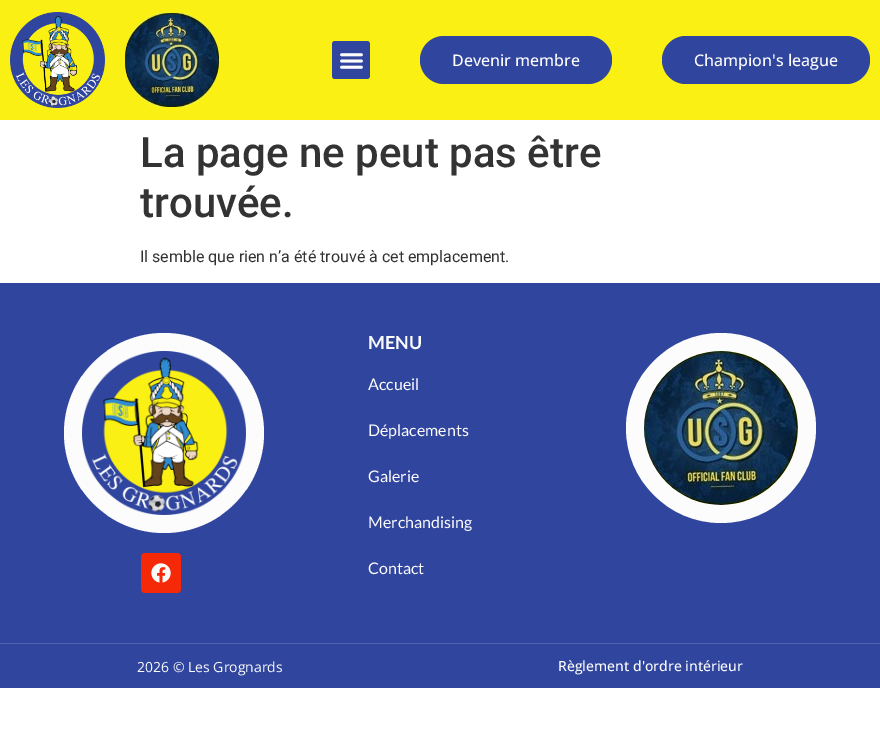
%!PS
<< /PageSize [880 735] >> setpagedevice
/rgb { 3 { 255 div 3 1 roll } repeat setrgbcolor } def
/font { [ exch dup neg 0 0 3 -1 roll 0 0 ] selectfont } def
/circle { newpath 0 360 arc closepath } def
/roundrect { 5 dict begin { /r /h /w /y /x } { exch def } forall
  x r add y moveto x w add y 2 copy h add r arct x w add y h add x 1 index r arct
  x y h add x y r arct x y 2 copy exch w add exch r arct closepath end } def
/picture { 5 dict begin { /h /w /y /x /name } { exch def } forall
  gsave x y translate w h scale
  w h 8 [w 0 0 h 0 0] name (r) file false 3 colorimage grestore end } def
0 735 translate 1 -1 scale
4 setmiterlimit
255 255 255 rgb
0 0 880 735 rectfill
250 240 20 rgb
0 0 880 120 rectfill
(img/1.rgb) 10 12 95 96 picture
(img/2.rgb) 125 13 94 94 picture
48 69 158 rgb
332 41 38 38 3 roundrect fill
(img/3.rgb) 340 53 23 16 picture
420 36 192 48 24 roundrect fill
662 36 208 48 24 roundrect fill
0 283 880 360 rectfill
252 252 252 rgb
164 433 100 circle fill
(img/4.rgb) 82 351 164 164 picture
245 41 7 rgb
141 553 40 40 4 roundrect fill
(img/5.rgb) 151 563 20 20 picture
252 252 252 rgb
721 428 95 circle fill
(img/6.rgb) 644 351 154 154 picture
48 69 158 rgb
0 644 880 44 rectfill
81 98 173 rgb
0 643 880 1 rectfill
/OpenSans-Medium 16 font
252 252 252 rgb
452 66 moveto (Devenir membre) show
694 66 moveto (Champion's league) show
/Roboto-Medium 42 font
51 51 51 rgb
140 167 moveto (La page ne peut pas être) show
140 217 moveto (trouvée.) show
/Roboto-Regular 16 font
140 262 moveto (Il semble que rien n’a été trouvé à cet emplacement.) show
/Lato-Bold 18 font
252 252 252 rgb
368 349 moveto (MENU) show
/Lato-Regular 16 font
[
  [(Accueil) 368 390]
  [(Déplacements) 368 436]
  [(Galerie) 368 482]
  [(Merchandising) 368 528]
  [(Contact) 368 574]
] { aload pop moveto show } forall
/OpenSans-Regular 14 font
137 672 moveto (2026 © Les Grognards) show
/OpenSans-Medium 14 font
558 671 moveto (Règlement d'ordre intérieur) show
showpage
